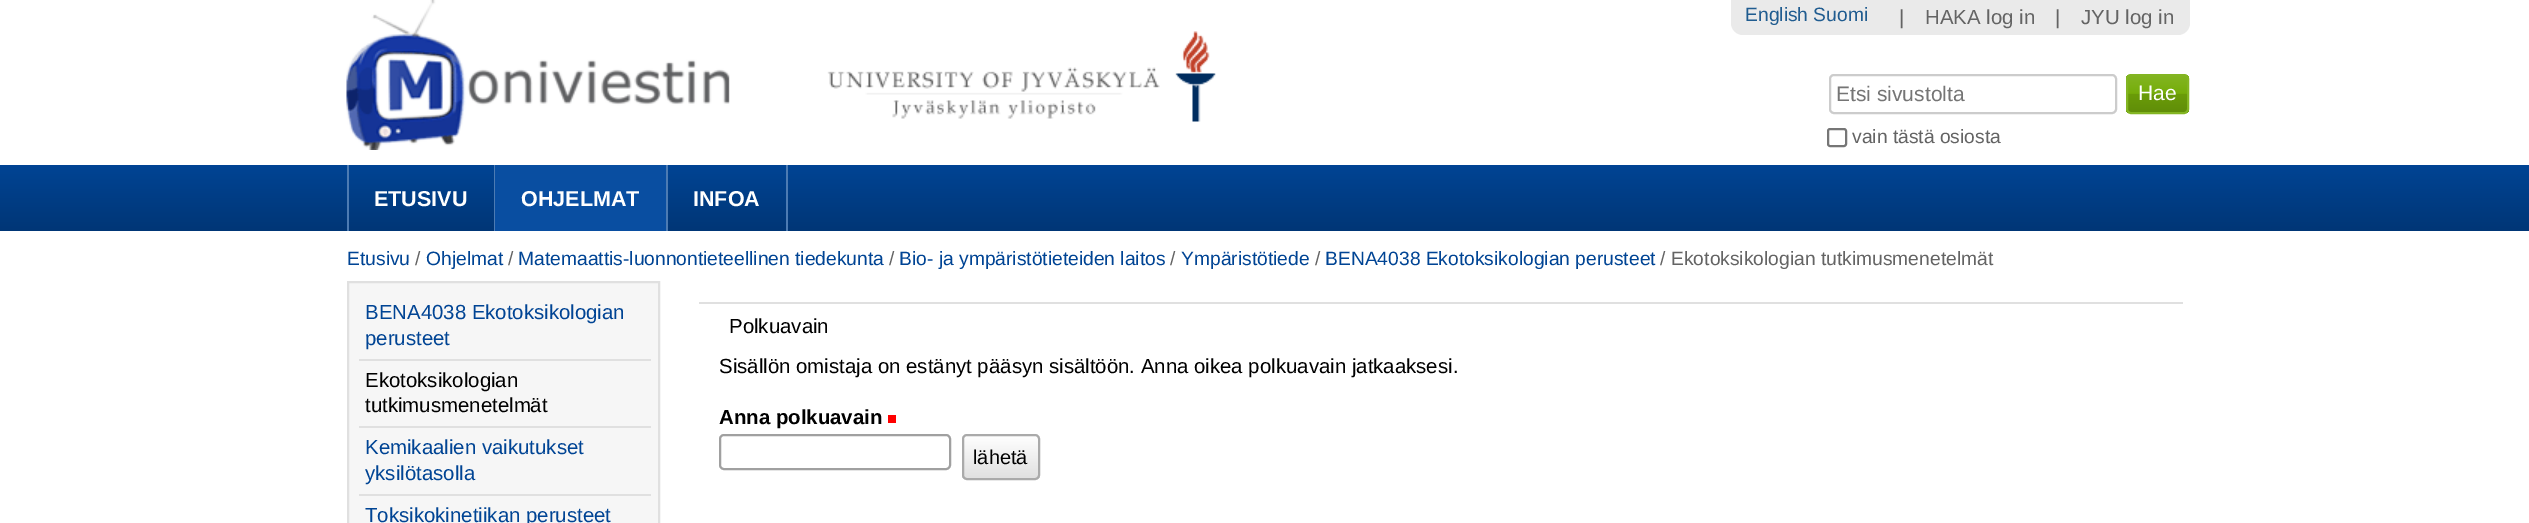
%!PS
<< /PageSize [2529 523] >> setpagedevice
/rgb { 3 { 255 div 3 1 roll } repeat setrgbcolor } def
/font { [ exch dup neg 0 0 3 -1 roll 0 0 ] selectfont } def
/roundrect { 5 dict begin { /r /h /w /y /x } { exch def } forall
  x r add y moveto x w add y 2 copy h add r arct x w add y h add x 1 index r arct
  x y h add x y r arct x y 2 copy exch w add exch r arct closepath end } def
/picture { 5 dict begin { /h /w /y /x /name } { exch def } forall
  gsave x y translate w h scale
  w h 8 [w 0 0 h 0 0] name (r) file false 3 colorimage grestore end } def
0 523 translate 1 -1 scale
4 setmiterlimit
255 255 255 rgb
0 0 2529 523 rectfill
(img/1.rgb) 346 0 870 150 picture
234 234 234 rgb
1731 0 moveto 2190 0 lineto 2190 23 lineto 2190 29.5 2184.5 35 2178 35 curveto 1743 35 lineto 1736.5 35 1731 29.5 1731 23 curveto closepath fill
246 246 246 rgb
348 282 moveto 659 282 lineto 659 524 lineto 348 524 lineto closepath gsave fill grestore
224 224 224 rgb
2 setlinewidth
stroke
[
  [359 359 292 2 224 224 224]
  [359 426 292 2 224 224 224]
  [359 494 292 2 224 224 224]
  [699 302 1484 2 224 224 224]
  [888 415 8 8 255 0 0]
] { aload pop rgb rectfill } forall
160 160 160 rgb
720 435 230 34 4 roundrect stroke
gsave
962 434 78 46 5 roundrect clip newpath
gsave 962 435 moveto 1040 435 lineto 1040 479 lineto 962 479 lineto closepath clip newpath
<< /ShadingType 2 /ColorSpace /DeviceRGB /Coords [1001 435 1001 479] /Extend [true true] /Function << /FunctionType 2 /Domain [0 1] /C0 [1 1 1] /C1 [0.878 0.878 0.878] /N 1 >> >> shfill grestore
grestore
170 170 170 rgb
963 435 76 44 4 roundrect stroke
204 204 204 rgb
1830 75 286 38 4 roundrect stroke
gsave
2126 74 63 40 5 roundrect clip newpath
gsave 2126 75 moveto 2189 75 lineto 2189 113 lineto 2126 113 lineto closepath clip newpath
<< /ShadingType 2 /ColorSpace /DeviceRGB /Coords [2157 75 2157 113] /Extend [true true] /Function << /FunctionType 3 /Domain [0 1] /Functions [<< /FunctionType 2 /Domain [0 1] /C0 [0.514 0.71 0.133] /C1 [0.459 0.678 0.039] /N 1 >> << /FunctionType 2 /Domain [0 1] /C0 [0.459 0.678 0.039] /C1 [0.416 0.612 0.035] /N 1 >> << /FunctionType 2 /Domain [0 1] /C0 [0.416 0.612 0.035] /C1 [0.376 0.553 0.031] /N 1 >>] /Bounds [0.49 0.5] /Encode [0 1 0 1 0 1] >> >> shfill grestore
grestore
131 181 34 rgb
2127 75 61 38 4 roundrect stroke
118 118 118 rgb
1828 129 18 17 2 roundrect stroke
gsave 0 165 moveto 2529 165 lineto 2529 231 lineto 0 231 lineto closepath clip newpath
<< /ShadingType 2 /ColorSpace /DeviceRGB /Coords [1265 165 1265 231] /Extend [true true] /Function << /FunctionType 2 /Domain [0 1] /C0 [0 0.267 0.58] /C1 [0 0.212 0.463] /N 1 >> >> shfill grestore
[
  [494 165 1 66 76 123 179]
  [347 165 2 66 76 123 179]
  [495 165 171 66 9 78 161]
  [666 165 2 66 76 123 179]
  [786 165 2 66 76 123 179]
] { aload pop rgb rectfill } forall
/LiberationSans-Regular 19.25 font
32 92 144 rgb
1745 21 moveto (English Suomi) show
/LiberationSans-Regular 20.4 font
100 100 100 rgb
[
  [(|) 1899 24]
  [(HAKA log in) 1925 24]
  [(|) 2055 24]
  [(JYU log in) 2081 24]
] { aload pop moveto show } forall
/LiberationSans-Regular 19.25 font
0 68 148 rgb
347 265 moveto (Etusivu) show
100 100 100 rgb
415 265 moveto (/) show
0 68 148 rgb
426 265 moveto (Ohjelmat) show
100 100 100 rgb
508 265 moveto (/) show
0 68 148 rgb
518 265 moveto (Matemaattis-luonnontieteellinen tiedekunta) show
100 100 100 rgb
889 265 moveto (/) show
0 68 148 rgb
899 265 moveto (Bio- ja ympäristötieteiden laitos) show
100 100 100 rgb
1170 265 moveto (/) show
0 68 148 rgb
1181 265 moveto (Ympäristötiede) show
100 100 100 rgb
1315 265 moveto (/) show
0 68 148 rgb
1325 265 moveto (BENA4038 Ekotoksikologian perusteet) show
100 100 100 rgb
1660 265 moveto (/) show
1671 265 moveto (Ekotoksikologian tutkimusmenetelmät) show
/LiberationSans-Regular 20.4 font
0 68 148 rgb
365 319 moveto (BENA4038 Ekotoksikologian) show
365 345 moveto (perusteet) show
0 0 0 rgb
365 387 moveto (Ekotoksikologian) show
365 412 moveto (tutkimusmenetelmät) show
0 68 148 rgb
[
  [(Kemikaalien vaikutukset) 365 454]
  [(yksilötasolla) 365 480]
  [(Toksikokinetiikan perusteet) 365 522]
] { aload pop moveto show } forall
0 0 0 rgb
729 333 moveto (Polkuavain) show
719 373 moveto (Sisällön omistaja on estänyt pääsyn sisältöön. Anna oikea polkuavain jatkaaksesi.) show
/LiberationSans-Bold 20.4 font
719 424 moveto (Anna polkuavain) show
/LiberationSans-Regular 20 font
973 464 moveto (lähetä) show
/LiberationSans-Regular 21 font
117 117 117 rgb
1836 101 moveto (Etsi sivustolta) show
255 255 255 rgb
2138 100 moveto (Hae) show
/LiberationSans-Regular 19.25 font
100 100 100 rgb
1852 143 moveto (vain tästä osiosta) show
/LiberationSans-Bold 21.5 font
255 255 255 rgb
[
  [(ETUSIVU) 374 206]
  [(OHJELMAT) 521 206]
  [(INFOA) 693 206]
] { aload pop moveto show } forall
showpage
